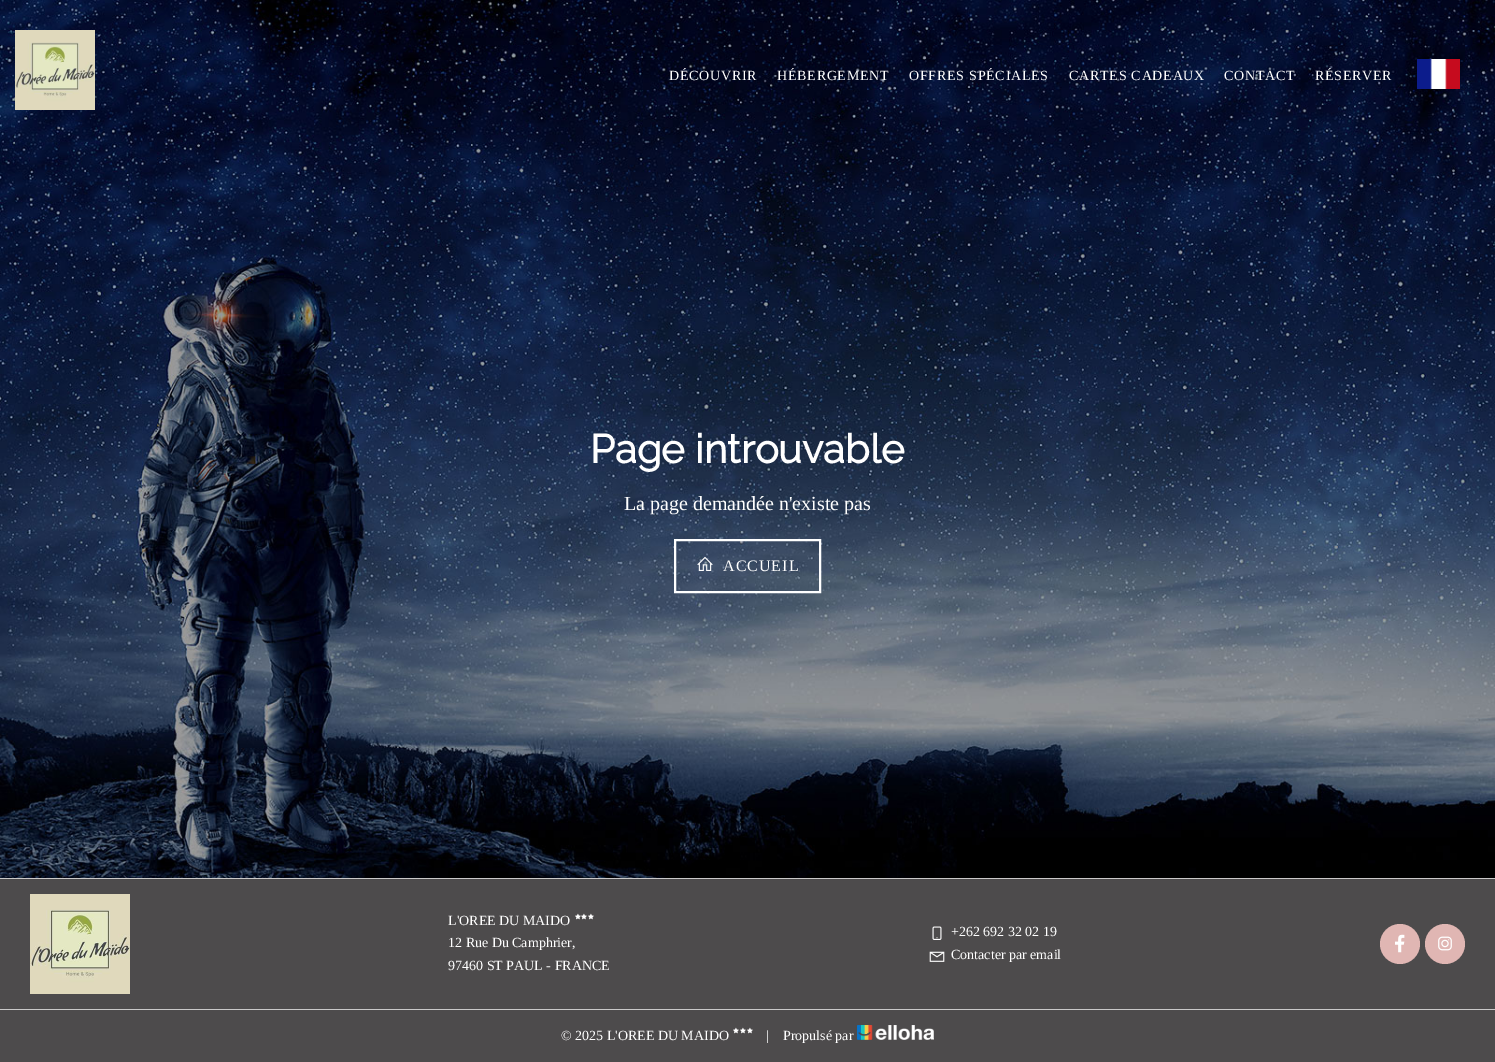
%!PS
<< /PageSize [1495 1062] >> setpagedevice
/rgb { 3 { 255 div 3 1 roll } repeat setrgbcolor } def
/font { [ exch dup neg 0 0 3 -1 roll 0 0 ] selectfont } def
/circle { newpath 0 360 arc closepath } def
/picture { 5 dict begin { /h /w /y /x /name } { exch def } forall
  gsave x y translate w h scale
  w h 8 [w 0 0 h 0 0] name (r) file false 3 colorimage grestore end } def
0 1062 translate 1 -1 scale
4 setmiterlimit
255 255 255 rgb
0 0 1495 1062 rectfill
(img/1.rgb) 0 0 1495 878 picture
(img/2.rgb) 15 30 80 80 picture
(img/3.rgb) 1417 59 43 30 picture
2 setlinewidth
675 540 145 52 rectstroke
(img/4.rgb) 697 556 16 15 picture
[
  [0 879 1495 130 77 75 76]
  [0 878 1495 1 202 201 201]
  [0 1009 1495 1 202 201 201]
] { aload pop rgb rectfill } forall
(img/5.rgb) 30 894 100 100 picture
(img/6.rgb) 575 913 6 7 picture
(img/6.rgb) 581 913 6 7 picture
(img/6.rgb) 588 913 6 7 picture
(img/7.rgb) 932 926 10 14 picture
(img/8.rgb) 929 951 16 11 picture
224 182 179 rgb
1400 944 20 circle fill
(img/9.rgb) 1395 934 10 19 picture
1445 944 20 circle fill
(img/10.rgb) 1438 936 14 15 picture
77 75 76 rgb
0 1010 1495 52 rectfill
(img/6.rgb) 733 1027 6 7 picture
(img/6.rgb) 740 1027 6 7 picture
(img/6.rgb) 747 1027 6 7 picture
(img/11.rgb) 857 1025 77 15 picture
/LiberationSerif-Regular 14 font
255 255 255 rgb
669 80 moveto 0.75 0 (DÉCOUVRIR) ashow
777 80 moveto 0.75 0 (HÉBERGEMENT) ashow
909 80 moveto 0.75 0 (OFFRES SPÉCIALES) ashow
1069 80 moveto 0.75 0 (CARTES CADEAUX) ashow
1224 80 moveto 0.75 0 (CONTACT) ashow
1315 80 moveto 0.75 0 (RÉSERVER) ashow
/Raleway-Bold 40 font
590 463 moveto (Page introuvable) show
/LiberationSerif-Regular 20 font
624 510 moveto (La page demandée n'existe pas) show
/LiberationSerif-Regular 16 font
723 571 moveto 1 0 (ACCUEIL) ashow
/LiberationSerif-Regular 14 font
[
  [(L'OREE DU MAIDO) 448 925]
  [(12 Rue Du Camphrier,) 448 947]
  [(97460 ST PAUL - FRANCE) 448 970]
  [(+262 692 32 02 19) 951 936]
  [(Contacter par email) 951 959]
  [(© 2025 L'OREE DU MAIDO) 561 1040]
  [(|) 766 1040]
  [(Propulsé par) 783 1040]
] { aload pop moveto show } forall
showpage
